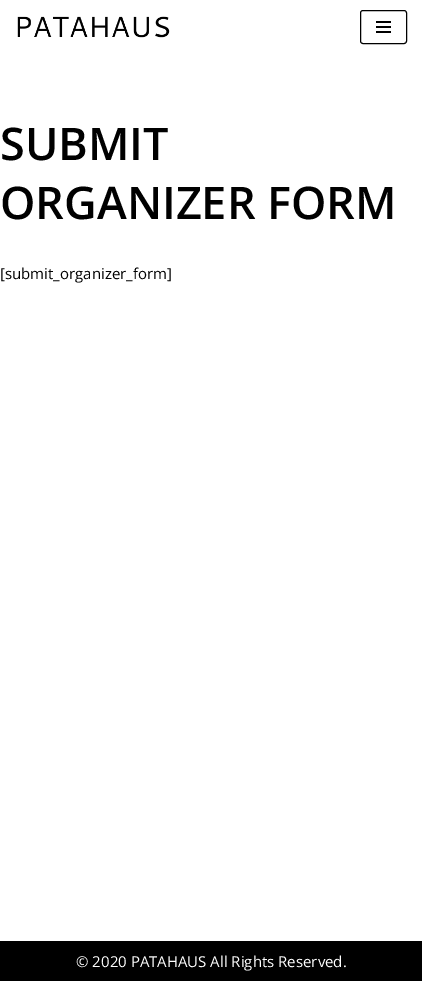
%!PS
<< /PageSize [422 981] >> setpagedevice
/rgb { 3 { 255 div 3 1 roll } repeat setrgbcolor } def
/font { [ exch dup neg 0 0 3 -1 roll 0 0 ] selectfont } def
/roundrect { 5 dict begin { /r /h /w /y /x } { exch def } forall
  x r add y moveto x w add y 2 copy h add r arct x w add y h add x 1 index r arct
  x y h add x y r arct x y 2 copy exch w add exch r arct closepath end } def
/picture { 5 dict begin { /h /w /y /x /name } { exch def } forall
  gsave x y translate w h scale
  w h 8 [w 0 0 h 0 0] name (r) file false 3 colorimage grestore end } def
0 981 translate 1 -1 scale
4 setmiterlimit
255 255 255 rgb
0 0 422 981 rectfill
(img/1.rgb) 17 16 153 22 picture
0 0 0 rgb
360.5 10.5 46 33 2.5 roundrect stroke
[
  [376 21 15 2 0 0 0]
  [376 26 15 2 0 0 0]
  [376 31 15 2 0 0 0]
  [0 941 422 40 0 0 0]
] { aload pop rgb rectfill } forall
/OpenSans-SemiBold 45 font
0 160 moveto (SUBMIT) show
0 219 moveto (ORGANIZER FORM) show
/OpenSans-Regular 15 font
0 279 moveto ([submit_organizer_form]) show
255 255 255 rgb
76 967 moveto (© 2020 PATAHAUS All Rights Reserved.) show
showpage
